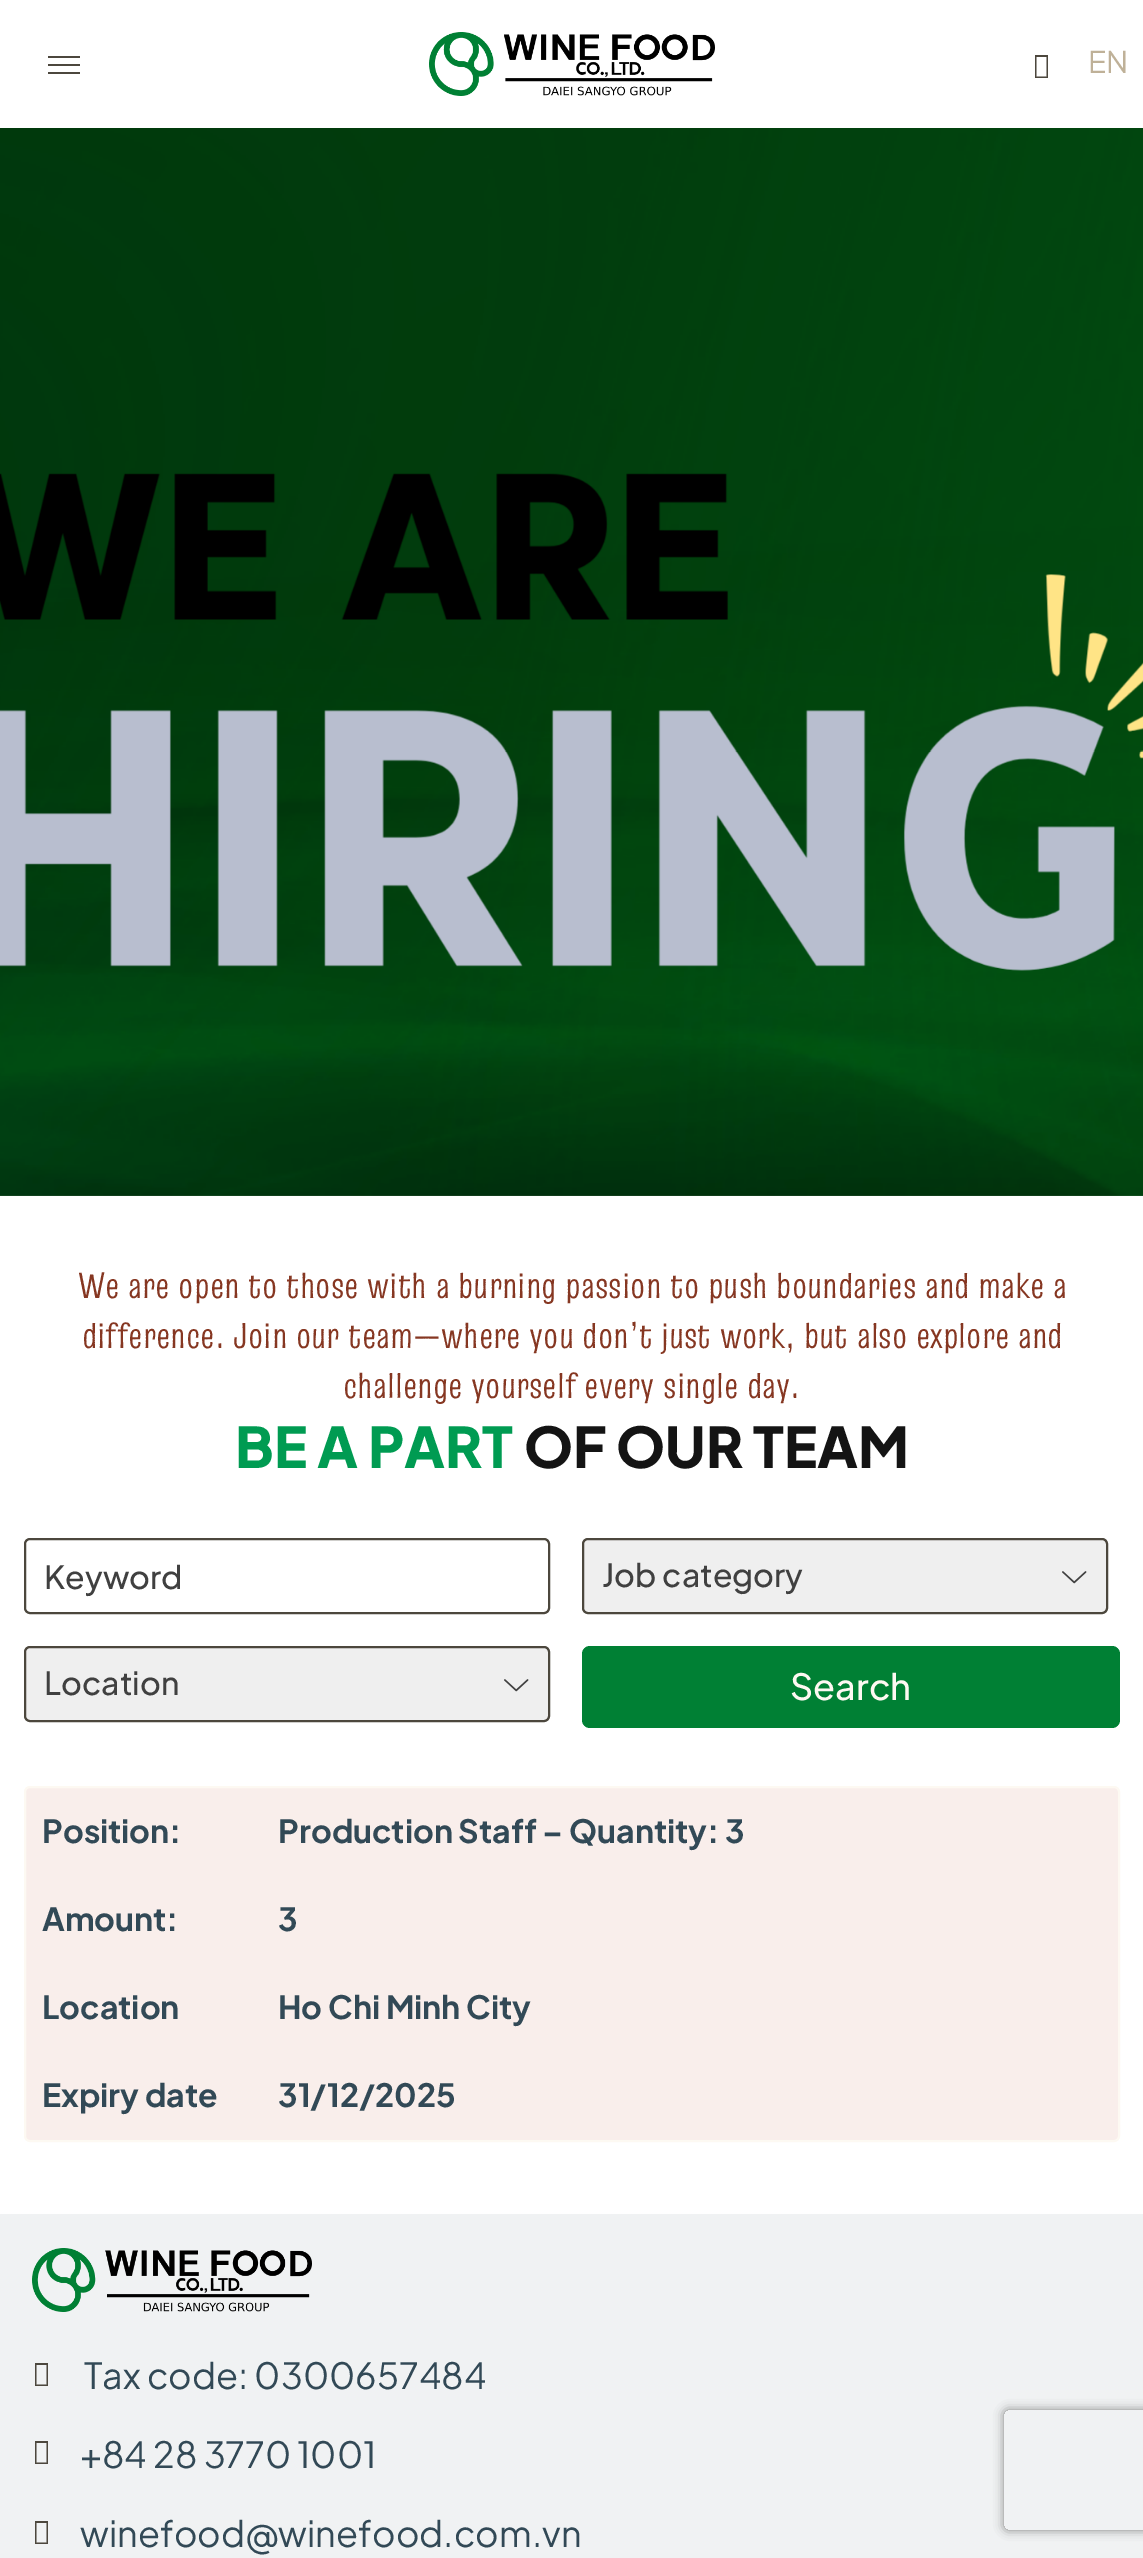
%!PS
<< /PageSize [1143 2558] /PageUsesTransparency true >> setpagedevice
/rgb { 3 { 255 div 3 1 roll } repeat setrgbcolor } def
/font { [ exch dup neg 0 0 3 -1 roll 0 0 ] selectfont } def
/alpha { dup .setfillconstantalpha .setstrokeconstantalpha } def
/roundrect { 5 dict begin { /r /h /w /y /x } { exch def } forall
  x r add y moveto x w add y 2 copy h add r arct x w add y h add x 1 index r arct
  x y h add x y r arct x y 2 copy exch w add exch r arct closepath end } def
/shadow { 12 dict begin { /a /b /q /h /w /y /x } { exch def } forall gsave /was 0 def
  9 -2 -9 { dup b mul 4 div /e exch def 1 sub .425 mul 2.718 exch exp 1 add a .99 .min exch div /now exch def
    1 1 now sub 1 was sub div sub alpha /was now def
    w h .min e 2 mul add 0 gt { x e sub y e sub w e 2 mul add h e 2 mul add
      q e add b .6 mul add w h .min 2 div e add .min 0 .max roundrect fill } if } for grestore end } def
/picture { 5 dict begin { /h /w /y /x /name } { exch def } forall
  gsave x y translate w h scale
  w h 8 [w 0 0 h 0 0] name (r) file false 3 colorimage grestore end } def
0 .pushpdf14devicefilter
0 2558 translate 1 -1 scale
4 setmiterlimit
255 255 255 rgb
0 0 1143 2558 rectfill
[
  [48 56 32 2 76 71 61]
  [48 64 32 2 76 71 61]
  [48 72 32 2 76 71 61]
] { aload pop rgb rectfill } forall
(img/1.rgb) 429 32 286 64 picture
1035 78 moveto 1035 55 lineto 1048 55 lineto 1048 78 lineto closepath 1036.5 76.5 moveto 1046.5 76.5 lineto 1046.5 57 lineto 1036.5 57 lineto closepath fill
(img/2.rgb) 0 128 1143 1068 picture
2 setlinewidth
25 1539 524 74 5 roundrect stroke
239 239 239 rgb
582 1538 526 76 6 roundrect fill
(img/3.rgb) 1062 1571 25 13 picture
76 71 61 rgb
583 1539 524 74 5 roundrect stroke
239 239 239 rgb
24 1646 526 76 6 roundrect fill
(img/3.rgb) 504 1679 25 13 picture
76 71 61 rgb
25 1647 524 74 5 roundrect stroke
0 128 52 rgb
582 1646 538 82 8 roundrect fill
249 238 235 rgb
25 1787 1094 354 5 roundrect gsave fill grestore
253 249 242 rgb
stroke
240 242 243 rgb
0 2214 1143 344 rectfill
(img/4.rgb) 32 2248 280 64 picture
76 71 61 rgb
35 2386 moveto 35 2363 lineto 48 2363 lineto 48 2386 lineto closepath 36.5 2384.5 moveto 46.5 2384.5 lineto 46.5 2365 lineto 36.5 2365 lineto closepath fill
35 2464 moveto 35 2441 lineto 48 2441 lineto 48 2464 lineto closepath 36.5 2462.5 moveto 46.5 2462.5 lineto 46.5 2443 lineto 36.5 2443 lineto closepath fill
35 2544 moveto 35 2521 lineto 48 2521 lineto 48 2544 lineto closepath 36.5 2542.5 moveto 46.5 2542.5 lineto 46.5 2523 lineto 36.5 2523 lineto closepath fill
gsave
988 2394 moveto 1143 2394 lineto 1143 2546 lineto 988 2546 lineto closepath 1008 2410 moveto 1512 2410 lineto 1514 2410 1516 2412 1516 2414 curveto 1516 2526 lineto 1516 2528 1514 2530 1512 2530 curveto 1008 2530 lineto 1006 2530 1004 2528 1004 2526 curveto 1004 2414 lineto 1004 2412 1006 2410 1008 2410 curveto closepath eoclip newpath
128 128 128 rgb
1004 2410 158 120 4 5 1 shadow
grestore
/PlusJakartaSans-Regular 30 font
191 177 152 rgb
1088 73 moveto (EN) show
/Truculenta-Regular 36 font
134 55 34 rgb
[
  [(We are open to those with a burning passion to push boundaries and make a) 78 1298]
  [(difference. Join our team—where you don’t just work, but also explore and) 82 1348]
  [(challenge yourself every single day.) 343 1398]
] { aload pop moveto show } forall
/PlusJakartaSans-ExtraBold 56 font
0 155 82 rgb
235 1468 moveto (BE A PART) show
20 20 20 rgb
524 1468 moveto (OF OUR TEAM) show
/PlusJakartaSans-Medium 32 font
64 64 64 rgb
[
  [(Keyword) 44 1589]
  [(Job category) 602 1587]
  [(Location) 44 1695]
] { aload pop moveto show } forall
/PlusJakartaSans-Medium 36 font
253 249 242 rgb
790 1700 moveto (Search) show
/PlusJakartaSans-Bold 32 font
50 73 86 rgb
[
  [(Position:) 42 1843]
  [(Production Staff – Quantity: 3) 278 1843]
  [(Amount:) 42 1931]
  [(3) 278 1931]
  [(Location) 42 2019]
  [(Ho Chi Minh City) 278 2019]
  [(Expiry date) 42 2107]
  [(31/12/2025) 278 2107]
] { aload pop moveto show } forall
/PlusJakartaSans-Regular 36 font
[
  [(Tax code: 0300657484) 84 2389]
  [(+84 28 3770 1001) 80 2468]
  [(winefood@winefood.com.vn) 80 2547]
] { aload pop moveto show } forall
.poppdf14devicefilter showpage
